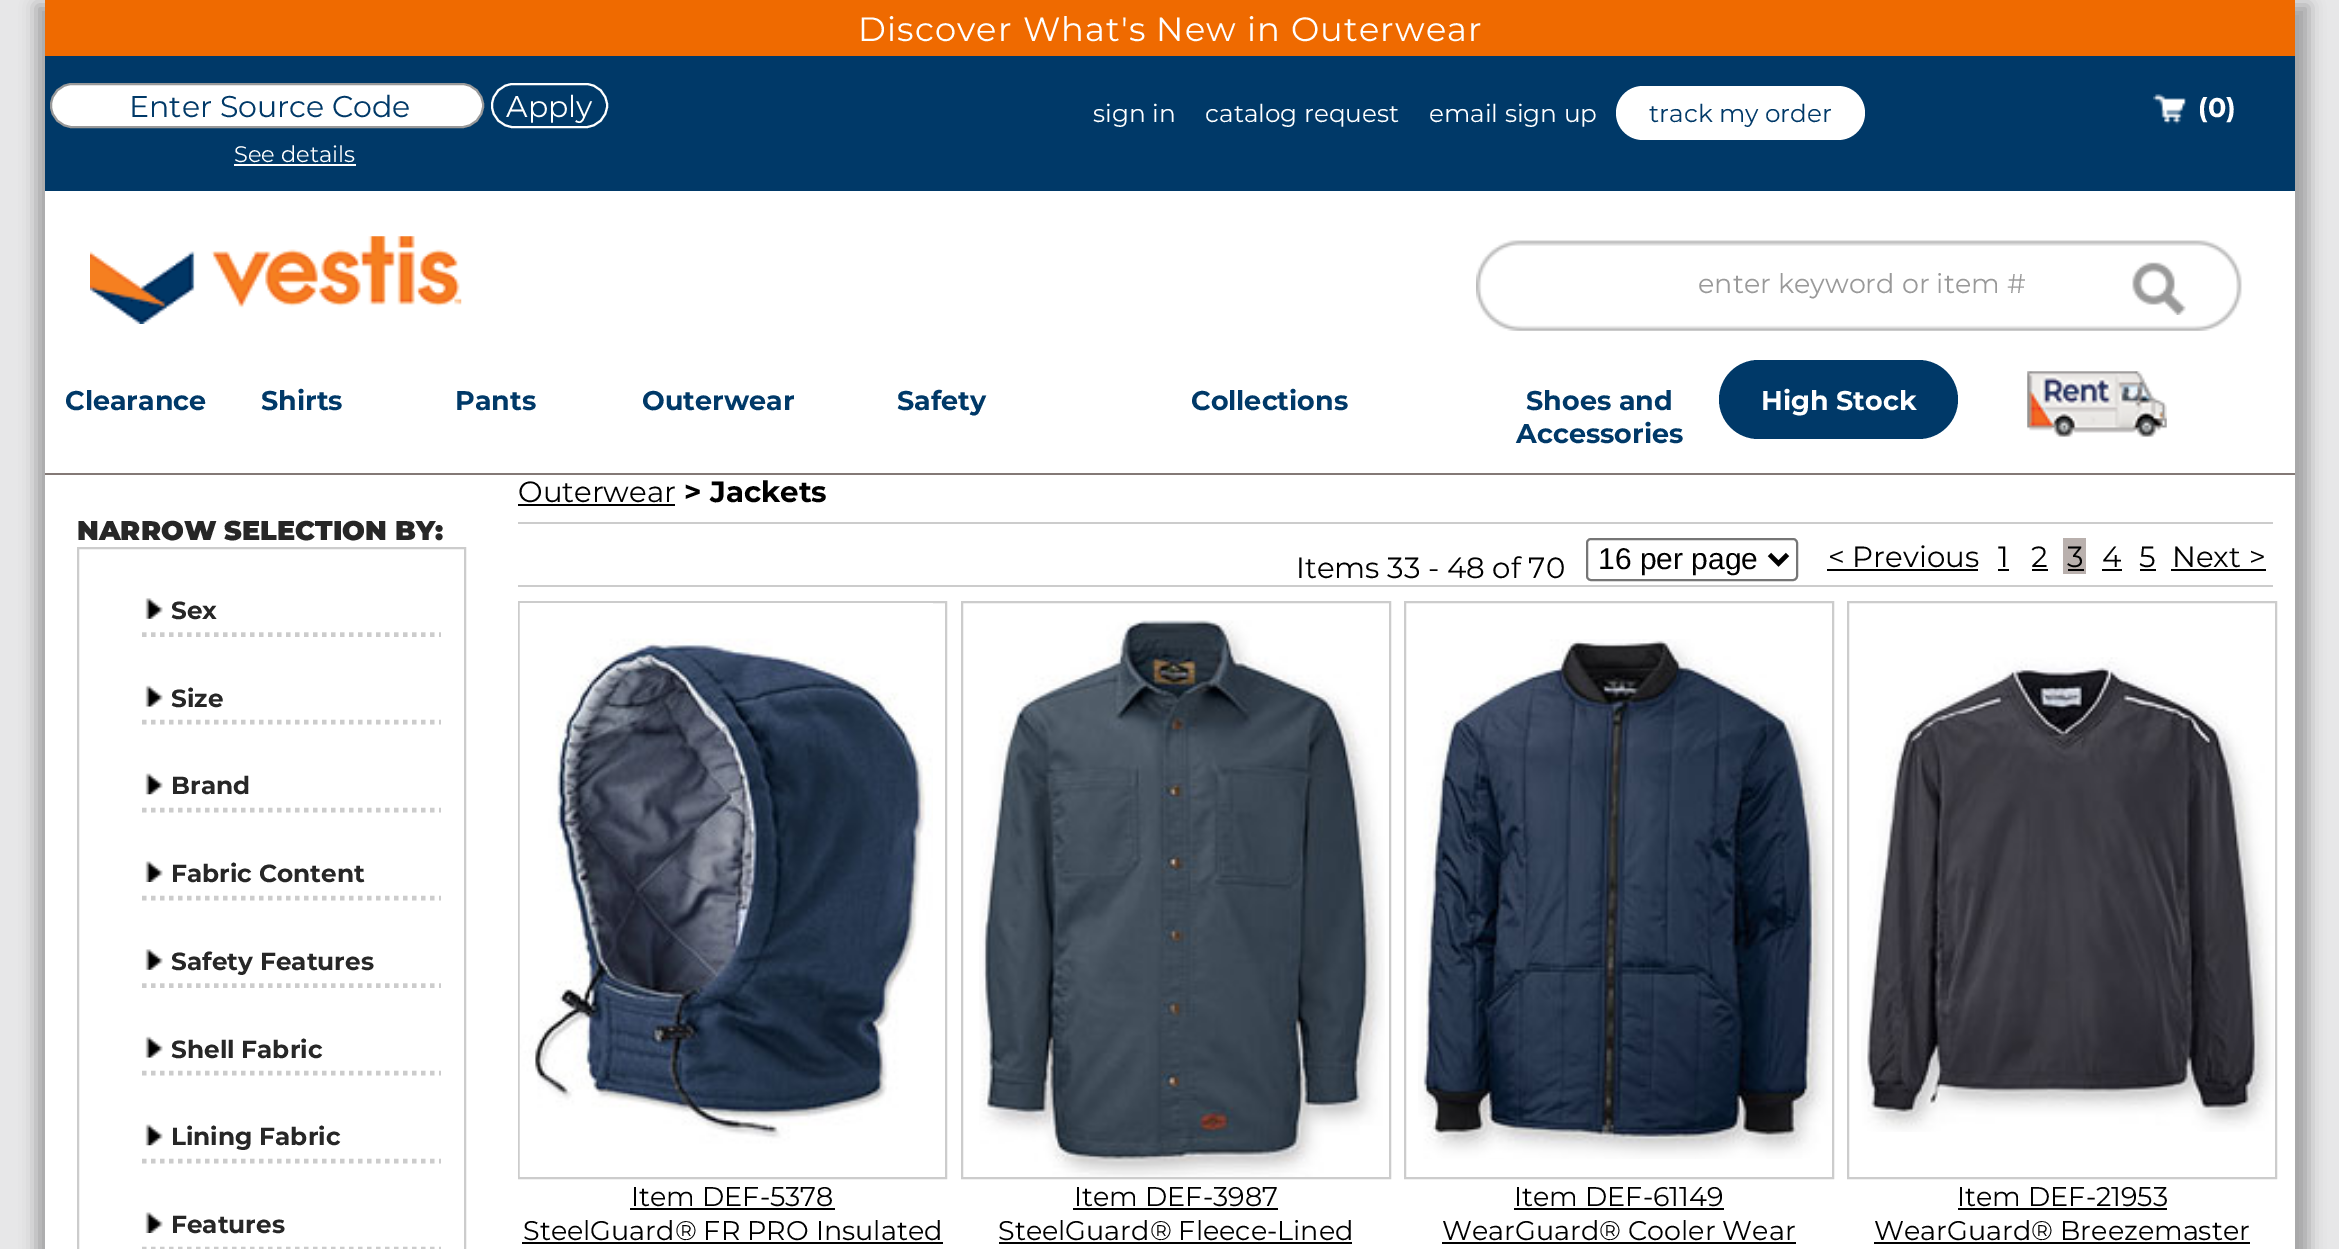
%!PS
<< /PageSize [2339 1249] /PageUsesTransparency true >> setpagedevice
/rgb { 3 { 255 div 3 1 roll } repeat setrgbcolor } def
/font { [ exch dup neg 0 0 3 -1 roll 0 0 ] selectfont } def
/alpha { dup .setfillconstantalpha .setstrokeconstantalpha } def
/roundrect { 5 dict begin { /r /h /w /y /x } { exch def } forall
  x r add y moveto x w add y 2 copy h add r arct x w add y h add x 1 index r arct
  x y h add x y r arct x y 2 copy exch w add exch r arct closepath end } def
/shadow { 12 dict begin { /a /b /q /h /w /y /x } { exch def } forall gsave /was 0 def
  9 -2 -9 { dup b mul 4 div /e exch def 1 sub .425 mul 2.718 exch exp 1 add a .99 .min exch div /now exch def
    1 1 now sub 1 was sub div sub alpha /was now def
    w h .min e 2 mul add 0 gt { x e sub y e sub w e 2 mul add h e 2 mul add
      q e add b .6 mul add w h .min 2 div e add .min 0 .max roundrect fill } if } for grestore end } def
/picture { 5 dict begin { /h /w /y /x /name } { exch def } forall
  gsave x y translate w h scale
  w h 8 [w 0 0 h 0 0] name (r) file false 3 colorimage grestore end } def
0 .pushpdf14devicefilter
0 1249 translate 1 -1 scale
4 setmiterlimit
231 231 232 rgb
0 0 2339 1249 rectfill
0 0 0 rgb
36 5 2273 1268 0 8 0.3 shadow
[
  [45 191 2250 1058 255 255 255]
  [45 0 2250 56 239 106 0]
  [45 56 2250 135 0 57 104]
] { aload pop rgb rectfill } forall
255 255 255 rgb
51 84 432 43 21.5 roundrect gsave fill grestore
153 153 153 rgb
2 setlinewidth
stroke
255 255 255 rgb
492 84 115 43 21.5 roundrect stroke
234 164 122 2 rectfill
1616 86 249 54 27 roundrect fill
(img/1.rgb) 2153 94 33 31 picture
(img/2.rgb) 90 236 372 88 picture
(img/3.rgb) 1476 240 766 91 picture
(img/4.rgb) 2129 259 67 56 picture
131 121 118 rgb
45 473 2250 2 rectfill
0 57 104 rgb
1719 360 239 79 39.5 roundrect fill
(img/5.rgb) 2027 371 140 66 picture
204 204 204 rgb
78 548 387 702 rectstroke
4.5 setlinewidth
[4.5 4.5] 0 setdash
142 634.5 moveto 441 634.5 lineto stroke
(img/6.rgb) 145 598 18 21 picture
142 722 moveto 441 722 lineto stroke
(img/7.rgb) 145 685 18 22 picture
142 810 moveto 441 810 lineto stroke
(img/8.rgb) 145 773 18 22 picture
142 898 moveto 441 898 lineto stroke
(img/9.rgb) 145 861 18 21 picture
142 985.5 moveto 441 985.5 lineto stroke
(img/6.rgb) 145 949 18 21 picture
142 1073 moveto 441 1073 lineto stroke
(img/7.rgb) 145 1036 18 22 picture
142 1161 moveto 441 1161 lineto stroke
(img/10.rgb) 145 1124 18 22 picture
142 1249 moveto 441 1249 lineto stroke
(img/9.rgb) 145 1212 18 21 picture
[
  [518 504 157 2 0 0 0]
  [518 522 1755 2 204 204 204]
  [518 585 1755 2 204 204 204]
] { aload pop rgb rectfill } forall
118 118 118 rgb
2 setlinewidth
[] 0 setdash
1587 539 210 41 4 roundrect stroke
0 0 0 rgb
4.5 setlinewidth
1769.5 554.5 moveto 1778.5 563.5 lineto 1787.5 554.5 lineto stroke
[
  [1827 569 151 2 0 0 0]
  [1998 569 11 2 0 0 0]
  [2032 569 16 2 0 0 0]
  [2063 538 23 36 185 176 173]
  [2068 569 16 2 0 0 0]
  [2102 569 20 2 0 0 0]
  [2140 569 16 2 0 0 0]
  [2171 569 95 2 0 0 0]
] { aload pop rgb rectfill } forall
204 204 204 rgb
2 setlinewidth
519 602 427 576 rectstroke
(img/11.rgb) 519 603 414 574 picture
0 0 0 rgb
630 1208 205 2 rectfill
522 1242 421 2 rectfill
204 204 204 rgb
962 602 428 576 rectstroke
(img/12.rgb) 979 620 406 557 picture
0 0 0 rgb
1073 1208 205 2 rectfill
999 1242 353 2 rectfill
204 204 204 rgb
1405 602 428 576 rectstroke
(img/13.rgb) 1418 639 413 520 picture
0 0 0 rgb
1514 1208 210 2 rectfill
1442 1242 354 2 rectfill
204 204 204 rgb
1848 602 428 576 rectstroke
(img/14.rgb) 1861 657 413 475 picture
0 0 0 rgb
1958 1208 209 2 rectfill
1874 1242 376 2 rectfill
/Montserrat-Regular 33.75 font
255 255 255 rgb
858 41 moveto 1.1 0 (Discover What's New in Outerwear) ashow
/Montserrat-Regular 30 font
0 57 104 rgb
129 117 moveto (Enter Source Code) show
255 255 255 rgb
506 117 moveto (Apply) show
/Montserrat-Regular 22.5 font
234 162 moveto (See details) show
/Montserrat-Regular 24.75 font
[
  [(sign in) 1093 122]
  [(catalog request) 1205 122]
  [(email sign up) 1429 122]
] { aload pop moveto show } forall
0 57 104 rgb
1649 122 moveto (track my order) show
/Montserrat-Bold 27 font
255 255 255 rgb
2198 117 moveto (\(0\)) show
/Montserrat-Regular 27 font
153 153 153 rgb
1698 293 moveto (enter keyword or item #) show
/Montserrat-Bold 27 font
0 57 104 rgb
[
  [(Clearance) 65 410]
  [(Shirts) 261 410]
  [(Pants) 455 410]
  [(Outerwear) 642 410]
  [(Safety) 897 410]
  [(Collections) 1191 410]
  [(Shoes and) 1526 410]
  [(Accessories) 1516 443]
] { aload pop moveto show } forall
255 255 255 rgb
1761 410 moveto (High Stock) show
/Montserrat-Black 27 font
39 39 39 rgb
77 540 moveto (NARROW SELECTION BY:) show
/Montserrat-Bold 24.75 font
[
  [(Sex) 171 619]
  [(Size) 171 707]
  [(Brand) 171 794]
  [(Fabric Content) 171 882]
  [(Safety Features) 171 970]
  [(Shell Fabric) 171 1058]
  [(Lining Fabric) 171 1145]
  [(Features) 171 1233]
] { aload pop moveto show } forall
/Montserrat-Regular 29.25 font
0 0 0 rgb
518 502 moveto (Outerwear) show
/Montserrat-Bold 29.25 font
684 502 moveto (> Jackets) show
/Montserrat-Regular 29.25 font
1296 578 moveto (Items 33 - 48 of 70) show
/LiberationSans-Regular 30 font
1598 569 moveto (16 per page) show
/Montserrat-Regular 29.25 font
[
  [(< Previous) 1828 567]
  [(1) 1998 567]
  [(2) 2031 567]
  [(3) 2067 567]
  [(4) 2102 567]
  [(5) 2139 567]
  [(Next >) 2172 567]
] { aload pop moveto show } forall
/Montserrat-Regular 27 font
[
  [(Item DEF-5378) 631 1206]
  [(SteelGuard® FR PRO Insulated) 523 1240]
  [(Item DEF-3987) 1074 1206]
  [(SteelGuard® Fleece-Lined) 998 1240]
  [(Item DEF-61149) 1514 1206]
  [(WearGuard® Cooler Wear) 1442 1240]
  [(Item DEF-21953) 1957 1206]
  [(WearGuard® Breezemaster) 1874 1240]
] { aload pop moveto show } forall
.poppdf14devicefilter showpage
